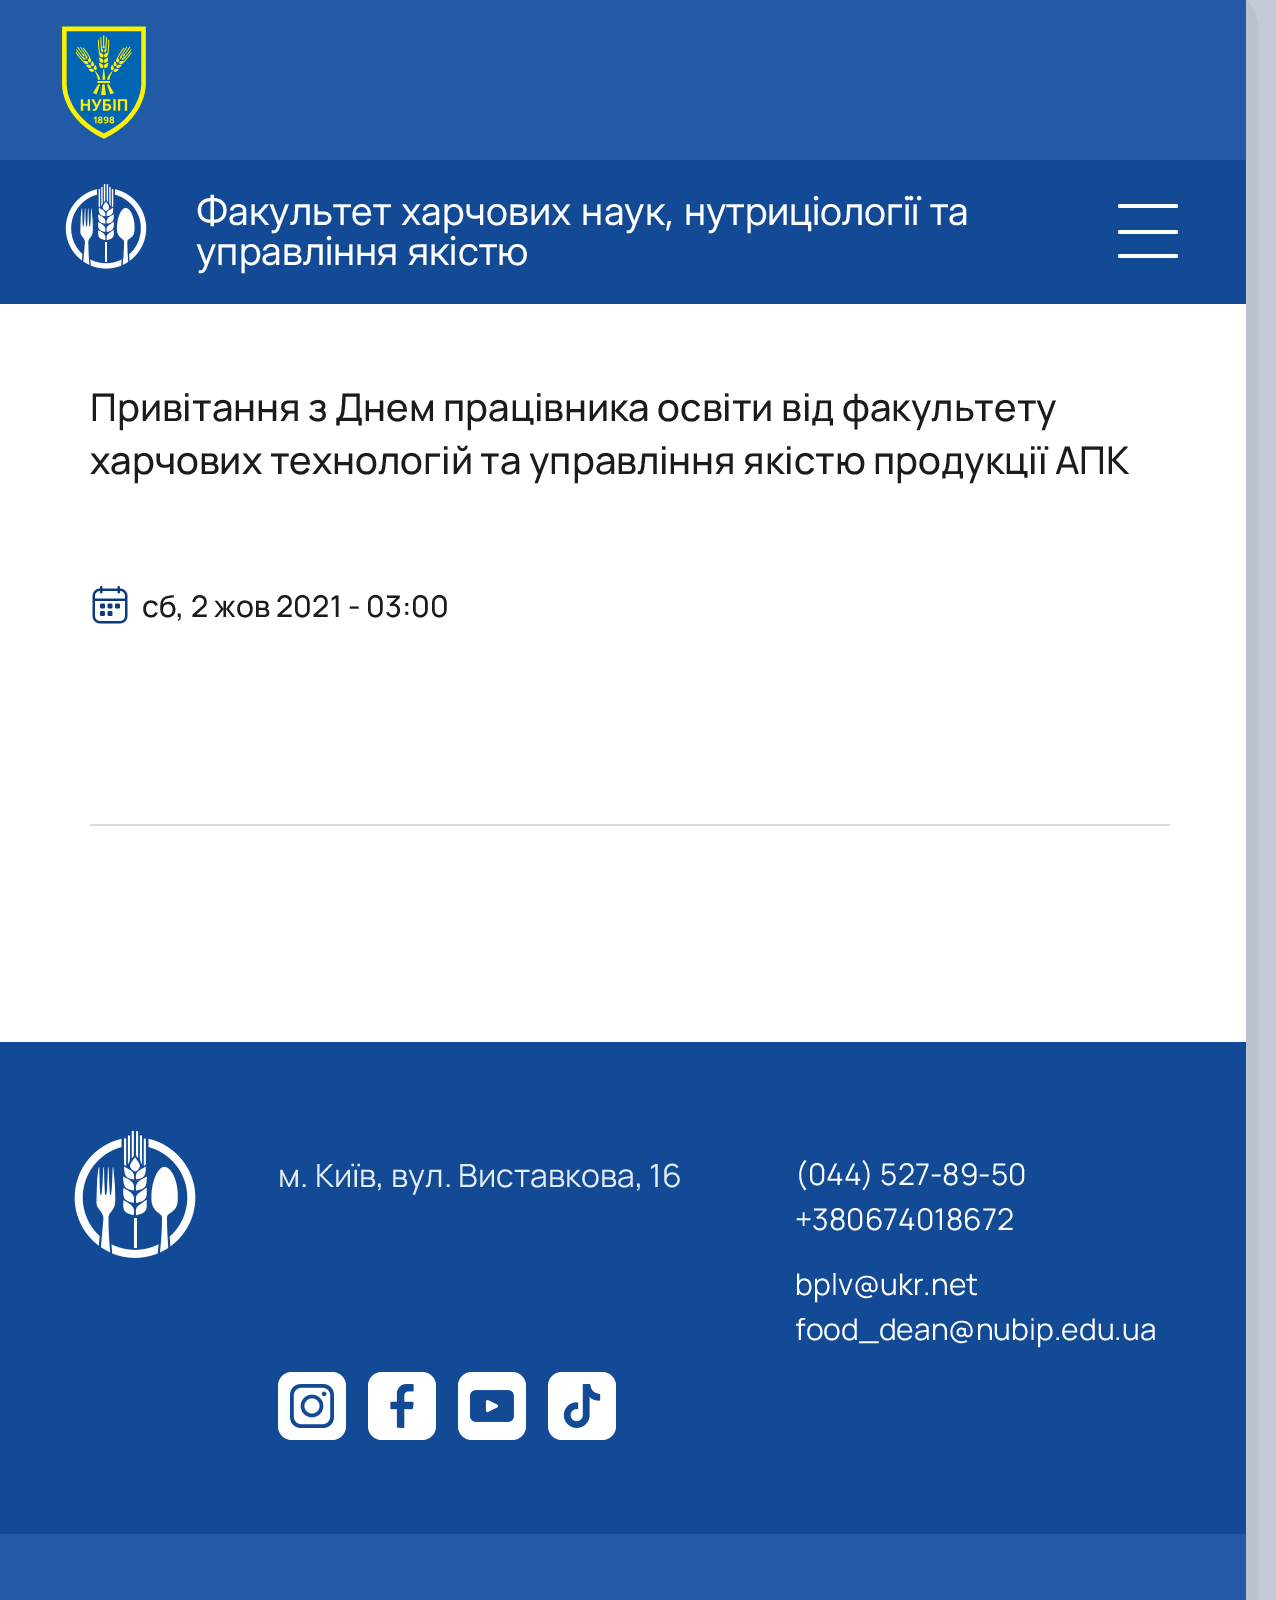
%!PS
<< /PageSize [1276 1600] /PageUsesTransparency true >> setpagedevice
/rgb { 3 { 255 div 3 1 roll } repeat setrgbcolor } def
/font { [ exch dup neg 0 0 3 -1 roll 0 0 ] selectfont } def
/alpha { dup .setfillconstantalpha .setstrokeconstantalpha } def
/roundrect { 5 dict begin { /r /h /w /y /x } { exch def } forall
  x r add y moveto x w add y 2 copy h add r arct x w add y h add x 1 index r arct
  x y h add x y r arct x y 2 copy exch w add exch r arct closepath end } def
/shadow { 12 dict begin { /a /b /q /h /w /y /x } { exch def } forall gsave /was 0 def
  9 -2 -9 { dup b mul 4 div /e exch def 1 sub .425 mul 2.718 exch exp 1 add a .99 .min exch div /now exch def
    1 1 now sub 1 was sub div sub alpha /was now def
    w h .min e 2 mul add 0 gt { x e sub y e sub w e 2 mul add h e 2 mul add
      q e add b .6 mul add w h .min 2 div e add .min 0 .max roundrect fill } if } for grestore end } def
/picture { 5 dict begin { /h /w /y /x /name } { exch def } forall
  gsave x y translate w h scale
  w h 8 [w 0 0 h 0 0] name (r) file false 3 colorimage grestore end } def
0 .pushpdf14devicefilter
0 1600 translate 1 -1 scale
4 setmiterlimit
208 217 229 rgb
0 0 1276 1600 rectfill
0 0 0 rgb
0 0 1246 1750 0 50 0.2 shadow
35 90 166 rgb
0 0 1246 160 rectfill
(img/1.rgb) 60 24 88 117 picture
255 255 255 rgb
0 304 1246 738 rectfill
19 74 150 rgb
0 160 1246 144 rectfill
(img/2.rgb) 65 183 82 86 picture
255 255 255 rgb
1118 204 60 4 2 roundrect fill
1118 230 60 4 2 roundrect fill
1118 254 60 4 2 roundrect fill
(img/3.rgb) 92 586 36 38 picture
219 219 219 rgb
90 824 1080 2 rectfill
19 74 150 rgb
0 1042 1246 492 rectfill
(img/4.rgb) 74 1130 122 128 picture
255 255 255 rgb
278 1372 68 68 14 roundrect fill
(img/5.rgb) 290 1384 44 44 picture
368 1372 68 68 14 roundrect fill
(img/6.rgb) 390 1384 24 44 picture
458 1372 68 68 14 roundrect fill
(img/7.rgb) 470 1390 44 32 picture
548 1372 68 68 14 roundrect fill
(img/8.rgb) 563 1384 38 44 picture
35 90 166 rgb
0 1534 1246 66 rectfill
/InterDisplay-Regular 40 font
255 255 255 rgb
196 225 moveto (Факультет харчових наук, нутриціології та) show
196 265 moveto (управління якістю) show
/Manrope-Medium 38.1 font
27 27 27 rgb
90 421 moveto (Привітання з Днем працівника освіти від факультету) show
90 474 moveto (харчових технологій та управління якістю продукції АПК) show
/Manrope-Medium 30 font
142 617 moveto (сб, 2 жов 2021 - 03:00) show
/Manrope-Regular 32 font
231 237 245 rgb
278 1187 moveto (м. Київ, вул. Виставкова, 16) show
/Manrope-Regular 30 font
255 255 255 rgb
[
  [(\(044\) 527-89-50) 795 1185]
  [(+380674018672) 795 1230]
  [(bplv@ukr.net) 795 1295]
  [(food_dean@nubip.edu.ua) 795 1340]
] { aload pop moveto show } forall
.poppdf14devicefilter showpage
